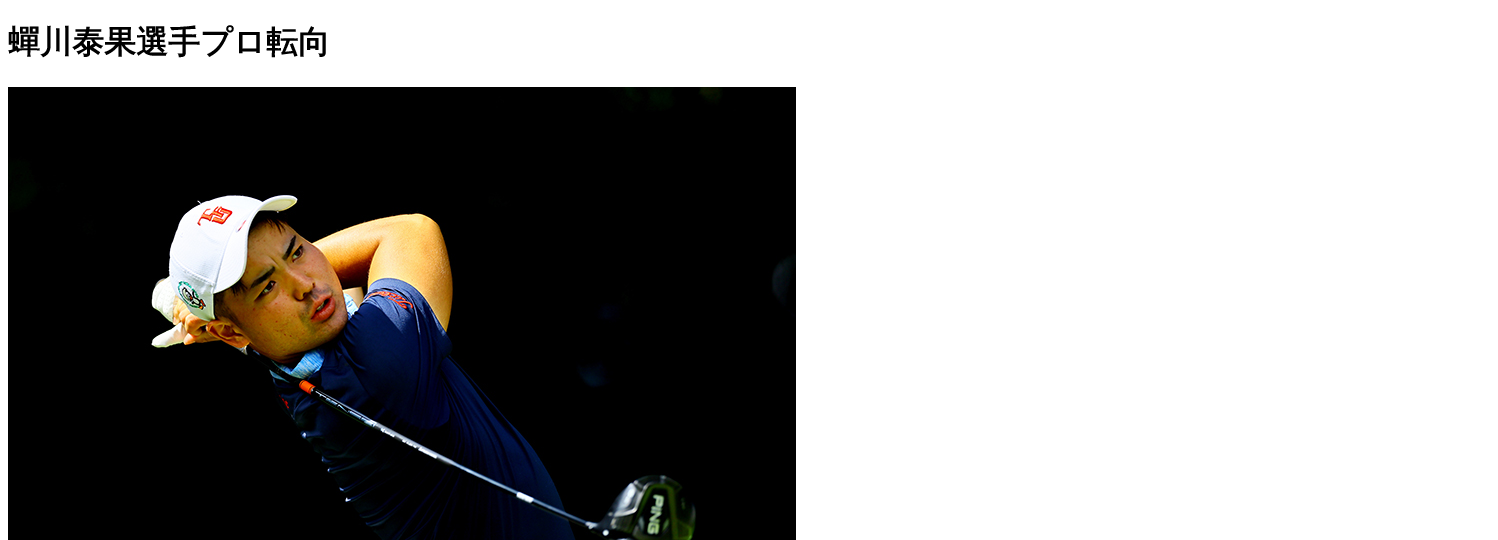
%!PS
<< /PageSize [1498 540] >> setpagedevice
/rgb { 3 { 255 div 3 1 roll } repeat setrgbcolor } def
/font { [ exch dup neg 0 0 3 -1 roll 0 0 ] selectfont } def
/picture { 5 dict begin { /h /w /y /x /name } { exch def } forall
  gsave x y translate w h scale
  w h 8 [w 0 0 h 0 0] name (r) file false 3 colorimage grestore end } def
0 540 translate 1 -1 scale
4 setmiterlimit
255 255 255 rgb
0 0 1498 540 rectfill
(img/1.rgb) 8 87 788 453 picture
/WenQuanYiZenHei-Bold 32 font
0 0 0 rgb
8 53 moveto (蟬川泰果選手プロ転向) show
showpage
